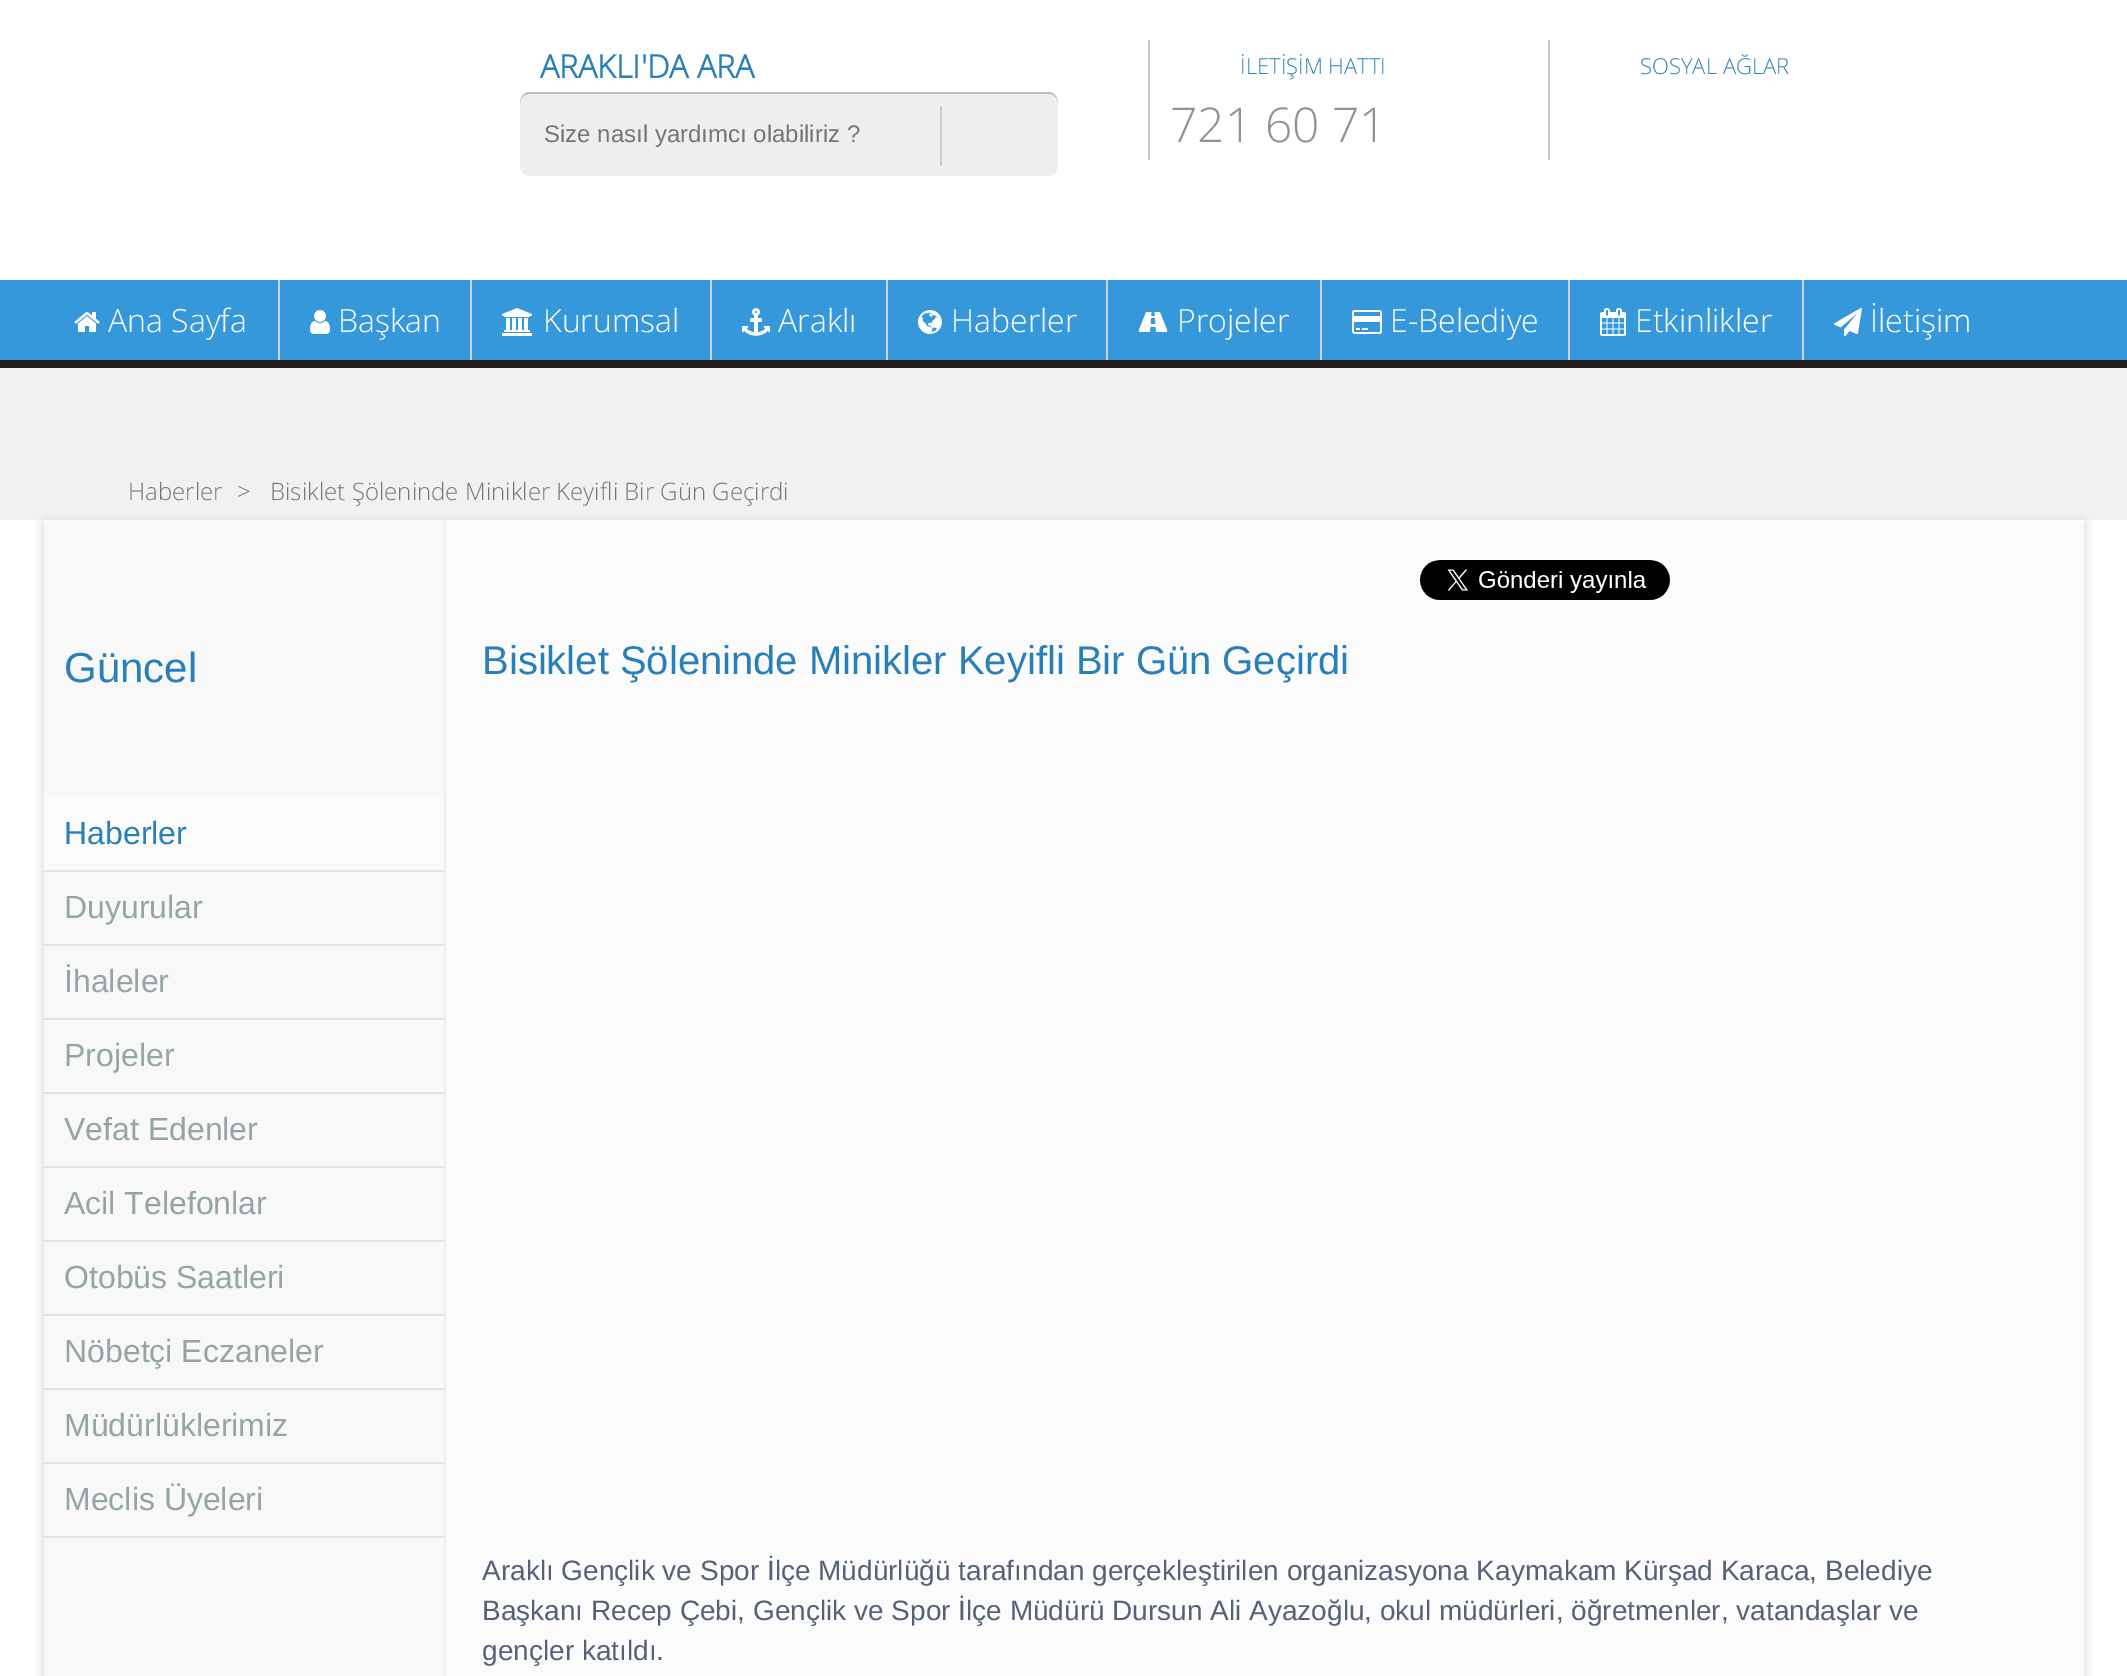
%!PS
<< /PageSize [2127 1676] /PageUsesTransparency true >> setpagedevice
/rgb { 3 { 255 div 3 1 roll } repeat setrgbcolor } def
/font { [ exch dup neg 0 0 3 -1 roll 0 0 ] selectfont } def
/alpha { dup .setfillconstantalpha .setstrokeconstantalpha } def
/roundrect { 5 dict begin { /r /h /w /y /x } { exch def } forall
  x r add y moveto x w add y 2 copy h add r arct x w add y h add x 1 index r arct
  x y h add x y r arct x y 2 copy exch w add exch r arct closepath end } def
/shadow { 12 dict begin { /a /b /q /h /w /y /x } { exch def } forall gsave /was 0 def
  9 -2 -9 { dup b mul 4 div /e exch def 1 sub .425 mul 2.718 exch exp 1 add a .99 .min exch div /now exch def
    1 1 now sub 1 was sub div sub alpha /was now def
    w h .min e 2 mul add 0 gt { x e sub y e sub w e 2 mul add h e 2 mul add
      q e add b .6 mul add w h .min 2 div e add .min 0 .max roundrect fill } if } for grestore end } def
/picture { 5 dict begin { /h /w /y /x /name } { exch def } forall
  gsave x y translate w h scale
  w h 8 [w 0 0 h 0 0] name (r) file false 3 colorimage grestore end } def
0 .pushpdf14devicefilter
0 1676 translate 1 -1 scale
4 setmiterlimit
255 255 255 rgb
0 0 2127 1676 rectfill
238 238 238 rgb
520 92 538 84 10 roundrect fill
0.2 alpha
0 0 0 rgb
530 94 moveto 1048 94 lineto 1054 94 1058 98 1058 104 curveto 1058 98 1055 92 1048 92 curveto 530 92 lineto 523 92 520 98 520 104 curveto 520 98 524 94 530 94 curveto closepath fill
1 alpha
[
  [940 106 2 60 204 204 204]
  [1148 40 2 120 204 204 204]
  [1548 40 2 120 204 204 204]
  [0 280 2127 80 52 152 219]
  [0 360 2127 8 35 31 32]
] { aload pop rgb rectfill } forall
(img/1.rgb) 74 312 26 20 picture
211 211 211 rgb
278 280 2 80 rectfill
(img/2.rgb) 310 310 20 24 picture
470 280 2 80 rectfill
(img/3.rgb) 502 308 30 28 picture
710 280 2 80 rectfill
(img/4.rgb) 742 308 28 28 picture
886 280 2 80 rectfill
(img/5.rgb) 918 310 24 24 picture
1106 280 2 80 rectfill
(img/6.rgb) 1138 312 30 20 picture
1320 280 2 80 rectfill
(img/7.rgb) 1352 310 30 24 picture
1568 280 2 80 rectfill
(img/8.rgb) 1600 308 26 28 picture
1802 280 2 80 rectfill
(img/9.rgb) 1834 308 28 28 picture
241 241 241 rgb
0 368 2127 152 rectfill
204 204 204 rgb
44 522 2040 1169 0 5 1 shadow
[
  [446 520 1638 1156 251 251 251]
  [44 520 400 1156 248 248 248]
  [44 798 400 72 251 251 251]
  [44 870 400 2 227 227 227]
  [44 944 400 2 227 227 227]
  [44 1018 400 2 227 227 227]
  [44 1092 400 2 227 227 227]
  [44 1166 400 2 227 227 227]
  [44 1240 400 2 227 227 227]
  [44 1314 400 2 227 227 227]
  [44 1388 400 2 227 227 227]
  [44 1462 400 2 227 227 227]
  [44 1536 400 2 227 227 227]
  [444 520 2 1156 237 237 237]
] { aload pop rgb rectfill } forall
(img/10.rgb) 1420 560 250 40 picture
/OpenSans-Bold 32 font
41 128 185 rgb
540 78 moveto (ARAKLI'DA ARA) show
/LiberationSans-Regular 24 font
117 117 117 rgb
544 142 moveto (Size nasıl yardımcı olabiliriz ?) show
/OpenSans-Light 22 font
41 128 185 rgb
1240 74 moveto (İLETİŞİM HATTI) show
/OpenSans-Light 48 font
146 146 149 rgb
1170 142 moveto (721 60 71) show
/OpenSans-Light 22 font
41 128 185 rgb
1640 74 moveto (SOSYAL AĞLAR) show
/OpenSans-Light 32 font
255 255 255 rgb
[
  [(Ana Sayfa) 108 332]
  [(Başkan) 338 332]
  [(Kurumsal) 543 332]
  [(Araklı) 778 332]
  [(Haberler) 951 332]
  [(Projeler) 1177 332]
  [(E-Belediye) 1390 332]
  [(Etkinlikler) 1635 332]
  [(İletişim) 1870 332]
] { aload pop moveto show } forall
/OpenSans-Light 24 font
117 117 117 rgb
[
  [(Haberler) 128 500]
  [(>) 237 500]
  [(Bisiklet Şöleninde Minikler Keyifli Bir Gün Geçirdi) 270 500]
] { aload pop moveto show } forall
/LiberationSans-Regular 42 font
41 128 185 rgb
64 682 moveto (Güncel) show
/LiberationSans-Regular 32 font
64 844 moveto (Haberler) show
149 165 166 rgb
[
  [(Duyurular) 64 918]
  [(İhaleler) 64 992]
  [(Projeler) 64 1066]
  [(Vefat Edenler) 64 1140]
  [(Acil Telefonlar) 64 1214]
  [(Otobüs Saatleri) 64 1288]
  [(Nöbetçi Eczaneler) 64 1362]
  [(Müdürlüklerimiz) 64 1436]
  [(Meclis Üyeleri) 64 1510]
] { aload pop moveto show } forall
/LiberationSans-Regular 40 font
41 128 185 rgb
482 674 moveto (Bisiklet Şöleninde Minikler Keyifli Bir Gün Geçirdi) show
/LiberationSans-Regular 28 font
84 97 119 rgb
[
  [(Araklı Gençlik ve Spor İlçe Müdürlüğü tarafından gerçekleştirilen organizasyona Kaymakam Kürşad Karaca, Belediye) 482 1580]
  [(Başkanı Recep Çebi, Gençlik ve Spor İlçe Müdürü Dursun Ali Ayazoğlu, okul müdürleri, öğretmenler, vatandaşlar ve) 482 1620]
  [(gençler katıldı.) 482 1660]
] { aload pop moveto show } forall
.poppdf14devicefilter showpage
